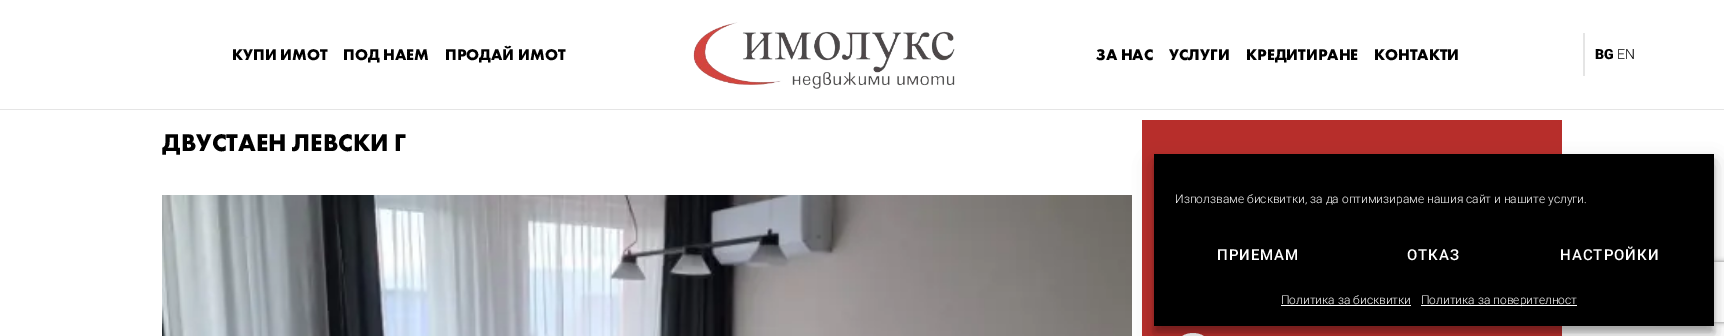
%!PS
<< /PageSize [1724 336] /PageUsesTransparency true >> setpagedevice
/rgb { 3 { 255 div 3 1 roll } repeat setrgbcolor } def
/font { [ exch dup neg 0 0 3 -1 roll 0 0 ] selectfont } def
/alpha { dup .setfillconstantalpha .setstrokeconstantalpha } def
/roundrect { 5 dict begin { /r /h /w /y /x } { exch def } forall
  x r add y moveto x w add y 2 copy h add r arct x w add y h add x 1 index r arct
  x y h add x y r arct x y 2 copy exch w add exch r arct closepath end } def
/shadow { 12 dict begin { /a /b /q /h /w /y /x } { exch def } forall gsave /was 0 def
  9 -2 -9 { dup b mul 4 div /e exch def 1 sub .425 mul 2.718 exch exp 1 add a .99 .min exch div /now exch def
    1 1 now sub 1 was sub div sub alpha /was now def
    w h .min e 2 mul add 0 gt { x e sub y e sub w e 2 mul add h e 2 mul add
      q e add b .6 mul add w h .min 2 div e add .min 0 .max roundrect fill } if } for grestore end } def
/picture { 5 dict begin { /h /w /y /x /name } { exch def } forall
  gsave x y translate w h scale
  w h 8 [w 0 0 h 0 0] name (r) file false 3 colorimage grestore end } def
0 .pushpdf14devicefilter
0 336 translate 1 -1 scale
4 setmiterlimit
255 255 255 rgb
0 0 1724 336 rectfill
229 229 229 rgb
0 109 1724 1 rectfill
(img/1.rgb) 693 22 262 67 picture
1583 33 2 43 rectfill
(img/2.rgb) 162 195 970 141 picture
183 46 43 rgb
1142 120 420 216 rectfill
255 255 255 rgb
1172 333 42 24 21 roundrect fill
0 0 0 rgb
1154 160 560 172 0 3 0.23 shadow
1154 164 560 172 0 10 0.19 shadow
gsave
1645 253 moveto 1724 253 lineto 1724 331 lineto 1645 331 lineto closepath 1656 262 moveto 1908 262 lineto 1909 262 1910 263 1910 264 curveto 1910 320 lineto 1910 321 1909 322 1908 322 curveto 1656 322 lineto 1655 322 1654 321 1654 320 curveto 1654 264 lineto 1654 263 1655 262 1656 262 curveto closepath eoclip newpath
128 128 128 rgb
1654 262 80 60 2 2.5 1 shadow
grestore
[
  [1154 154 560 172 0 0 0]
  [1281 305 130 1 255 255 255]
  [1421 305 156 1 255 255 255]
] { aload pop rgb rectfill } forall
/FuturaPT-Bold 16 font
0 0 0 rgb
[
  [(КУПИ ИМОТ) 232 60]
  [(ПОД НАЕМ) 343 60]
  [(ПРОДАЙ ИМОТ) 445 60]
  [(ЗА НАС) 1096 60]
  [(УСЛУГИ) 1169 60]
  [(КРЕДИТИРАНЕ) 1246 60]
  [(КОНТАКТИ) 1374 60]
] { aload pop moveto show } forall
/Roboto-Black 14 font
1595 59 moveto (BG) show
/Roboto-Light 14 font
1617 59 moveto (EN) show
/FuturaPT-Bold 25 font
162 151 moveto (ДВУСТАЕН ЛЕВСКИ Г) show
/Roboto-Light 12 font
255 255 255 rgb
1175 203 moveto (Използваме бисквитки, за да оптимизираме нашия сайт и нашите услуги.) show
/Roboto-Medium 15 font
1217 260 moveto 1 0 (ПРИЕМАМ) ashow
1407 260 moveto 1 0 (ОТКАЗ) ashow
1560 260 moveto 1 0 (НАСТРОЙКИ) ashow
/Roboto-Light 12 font
1281 304 moveto (Политика за бисквитки) show
1421 304 moveto (Политика за поверителност) show
.poppdf14devicefilter showpage
